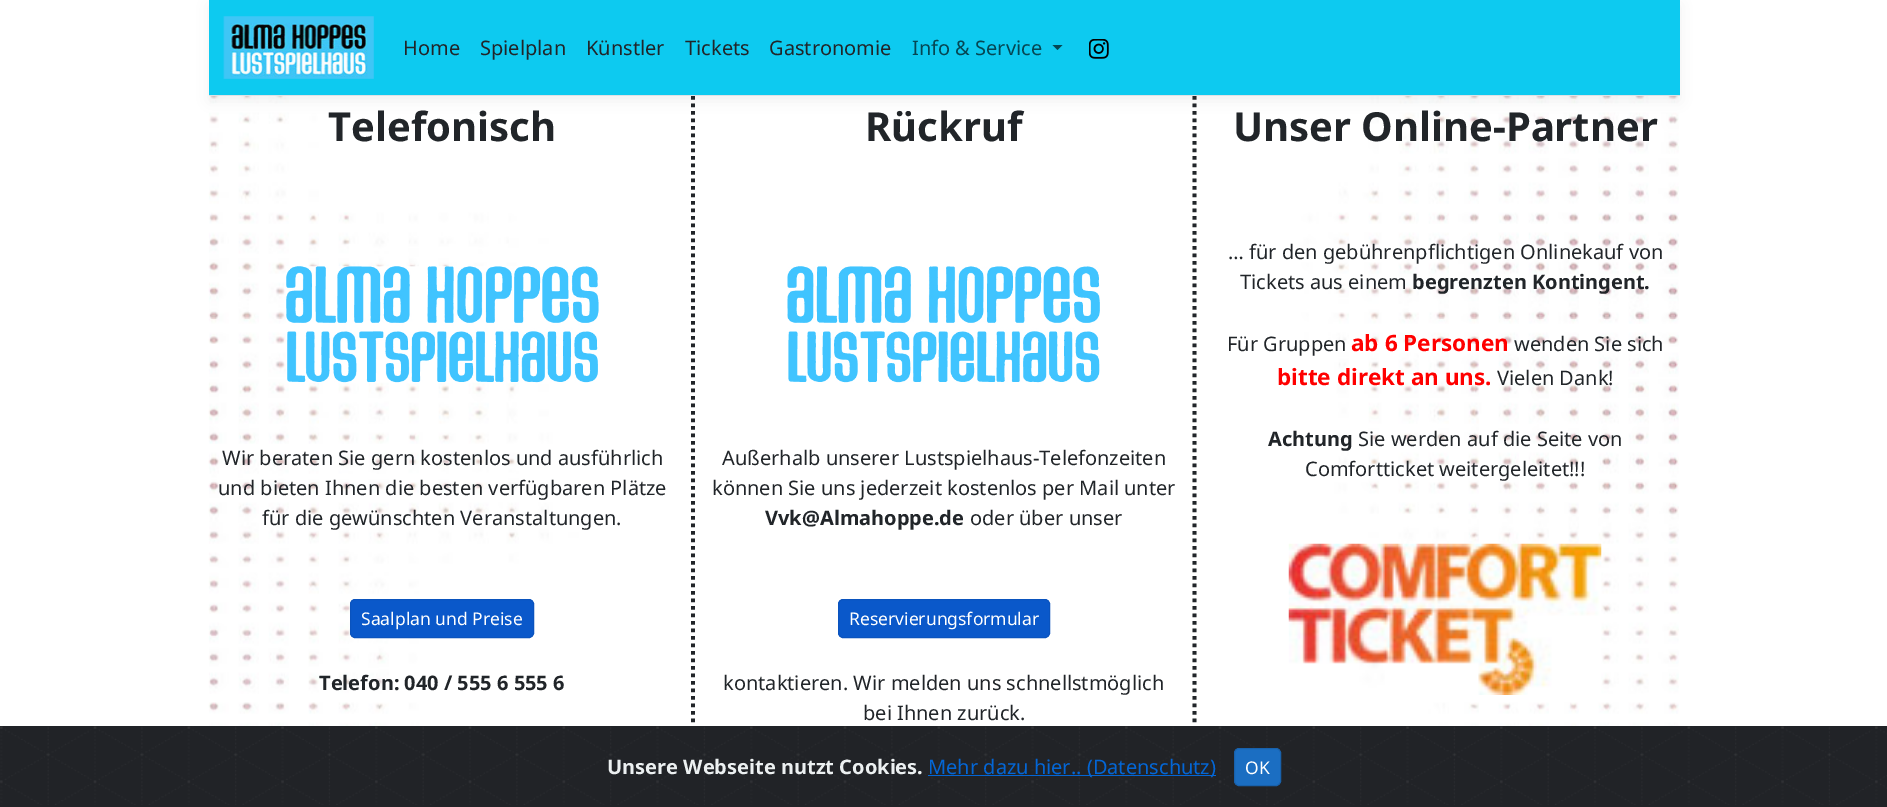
%!PS
<< /PageSize [1887 807] /PageUsesTransparency true >> setpagedevice
/rgb { 3 { 255 div 3 1 roll } repeat setrgbcolor } def
/font { [ exch dup neg 0 0 3 -1 roll 0 0 ] selectfont } def
/alpha { dup .setfillconstantalpha .setstrokeconstantalpha } def
/roundrect { 5 dict begin { /r /h /w /y /x } { exch def } forall
  x r add y moveto x w add y 2 copy h add r arct x w add y h add x 1 index r arct
  x y h add x y r arct x y 2 copy exch w add exch r arct closepath end } def
/shadow { 12 dict begin { /a /b /q /h /w /y /x } { exch def } forall gsave /was 0 def
  9 -2 -9 { dup b mul 4 div /e exch def 1 sub .425 mul 2.718 exch exp 1 add a .99 .min exch div /now exch def
    1 1 now sub 1 was sub div sub alpha /was now def
    w h .min e 2 mul add 0 gt { x e sub y e sub w e 2 mul add h e 2 mul add
      q e add b .6 mul add w h .min 2 div e add .min 0 .max roundrect fill } if } for grestore end } def
/picture { 5 dict begin { /h /w /y /x /name } { exch def } forall
  gsave x y translate w h scale
  w h 8 [w 0 0 h 0 0] name (r) file false 3 colorimage grestore end } def
0 .pushpdf14devicefilter
0 807 translate 1 -1 scale
4 setmiterlimit
255 255 255 rgb
0 0 1887 807 rectfill
(img/1.rgb) 208 0 1471 726 picture
33 37 41 rgb
3.8 setlinewidth
[3.75 3.75] 0 setdash
693 96 moveto 693 727.5 lineto stroke
1194.5 96 moveto 1194.5 727.5 lineto stroke
0 0 0 rgb
209 5 1471 96 0 7.5 0.05 shadow
13 202 240 rgb
209 0 1471 95 rectfill
222 226 230 rgb
209 95 1471 1 rectfill
(img/2.rgb) 223 16 151 63 picture
5 71 84 rgb
1052.5 45 moveto 1062.5 45 lineto 1057.5 50 lineto closepath fill
(img/3.rgb) 1089 39 20 20 picture
(img/4.rgb) 286 266 313 117 picture
10 88 202 rgb
350.5 599.5 183 38 4.5 roundrect gsave fill grestore
10 83 190 rgb
1 setlinewidth
[] 0 setdash
stroke
(img/5.rgb) 787 266 313 117 picture
10 88 202 rgb
838.5 599.5 211 38 4.5 roundrect gsave fill grestore
10 83 190 rgb
stroke
(img/6.rgb) 1288 543 314 152 picture
33 35 39 rgb
0 726 1887 81 rectfill
(img/7.rgb) 0 726 1887 79 picture
3 102 214 rgb
928 775 288 1 rectfill
27 110 194 rgb
1234.5 748.5 46 37 4.5 roundrect gsave fill grestore
24 97 172 rgb
stroke
/NotoSans-Regular 20 font
33 37 41 rgb
[
  [(Home) 403 55]
  [(Spielplan) 480 55]
  [(Künstler) 586 55]
  [(Tickets) 685 55]
  [(Gastronomie) 769 55]
] { aload pop moveto show } forall
5 71 84 rgb
912 55 moveto (Info & Service) show
/NotoSans-Bold 40 font
33 37 41 rgb
328 141 moveto (Telefonisch) show
/NotoSans-Regular 20 font
[
  [(Wir beraten Sie gern kostenlos und ausführlich) 222 465]
  [(und bieten Ihnen die besten verfügbaren Plätze) 218 495]
  [(für die gewünschten Veranstaltungen.) 262 525]
] { aload pop moveto show } forall
/NotoSans-Regular 17.5 font
255 255 255 rgb
361 625 moveto (Saalplan und Preise) show
/NotoSans-Bold 20 font
33 37 41 rgb
319 690 moveto (Telefon: 040 / 555 6 555 6) show
/NotoSans-Bold 40 font
865 141 moveto (Rückruf) show
/NotoSans-Regular 20 font
722 465 moveto (Außerhalb unserer Lustspielhaus-Telefonzeiten) show
712 495 moveto (können Sie uns jederzeit kostenlos per Mail unter) show
/NotoSans-Bold 20 font
765 525 moveto (Vvk@Almahoppe.de) show
/NotoSans-Regular 20 font
970 525 moveto (oder über unser) show
/NotoSans-Regular 17.5 font
255 255 255 rgb
849 625 moveto (Reservierungsformular) show
/NotoSans-Regular 20 font
33 37 41 rgb
723 690 moveto (kontaktieren. Wir melden uns schnellstmöglich) show
863 720 moveto (bei Ihnen zurück.) show
/NotoSans-Bold 40 font
1233 141 moveto (Unser Online-Partner) show
/NotoSans-Regular 20 font
1228 259 moveto (… für den gebührenpflichtigen Onlinekauf von) show
1240 289 moveto (Tickets aus einem) show
/NotoSans-Bold 20 font
1412 289 moveto (begrenzten Kontingent.) show
/NotoSans-Regular 20 font
1227 351 moveto (Für Gruppen) show
/NotoSans-Bold 22.5 font
255 0 0 rgb
1351 351 moveto (ab 6 Personen) show
/NotoSans-Regular 20 font
33 37 41 rgb
1514 351 moveto (wenden Sie sich) show
/NotoSans-Bold 22.5 font
255 0 0 rgb
1277 385 moveto (bitte direkt an uns.) show
/NotoSans-Regular 20 font
33 37 41 rgb
1497 385 moveto (Vielen Dank!) show
/NotoSans-Bold 20 font
1268 446 moveto (Achtung) show
/NotoSans-Regular 20 font
1358 446 moveto (Sie werden auf die Seite von) show
1305 476 moveto (Comfortticket weitergeleitet!!!) show
/NotoSans-Bold 20 font
236 240 241 rgb
607 774 moveto (Unsere Webseite nutzt Cookies.) show
/NotoSans-Regular 20 font
3 102 214 rgb
928 774 moveto (Mehr dazu hier.. \(Datenschutz\)) show
/NotoSans-Regular 17.5 font
255 255 255 rgb
1245 774 moveto (OK) show
.poppdf14devicefilter showpage
